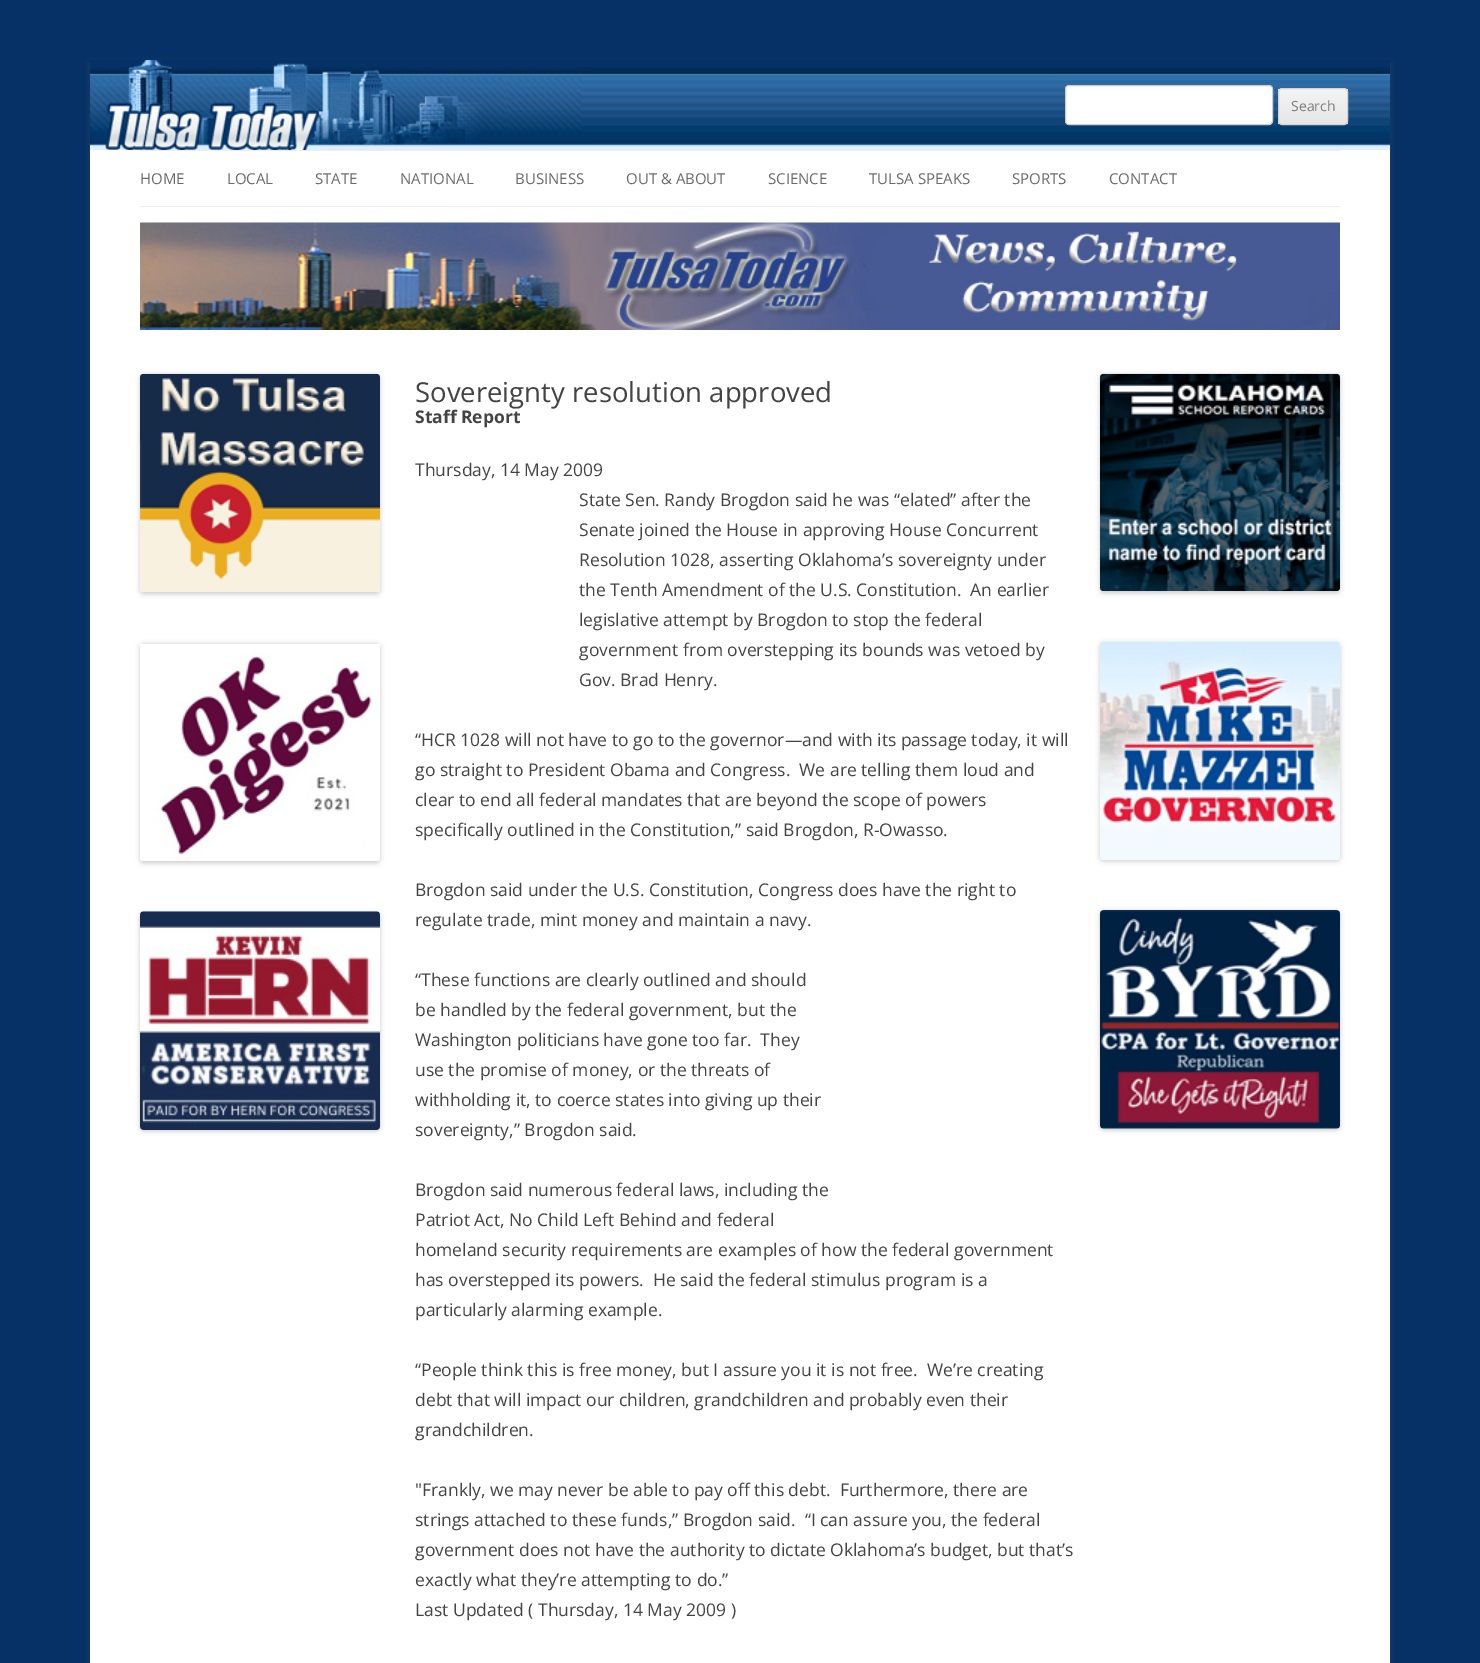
%!PS
<< /PageSize [1480 1663] /PageUsesTransparency true >> setpagedevice
/rgb { 3 { 255 div 3 1 roll } repeat setrgbcolor } def
/font { [ exch dup neg 0 0 3 -1 roll 0 0 ] selectfont } def
/alpha { dup .setfillconstantalpha .setstrokeconstantalpha } def
/roundrect { 5 dict begin { /r /h /w /y /x } { exch def } forall
  x r add y moveto x w add y 2 copy h add r arct x w add y h add x 1 index r arct
  x y h add x y r arct x y 2 copy exch w add exch r arct closepath end } def
/shadow { 12 dict begin { /a /b /q /h /w /y /x } { exch def } forall gsave /was 0 def
  9 -2 -9 { dup b mul 4 div /e exch def 1 sub .425 mul 2.718 exch exp 1 add a .99 .min exch div /now exch def
    1 1 now sub 1 was sub div sub alpha /was now def
    w h .min e 2 mul add 0 gt { x e sub y e sub w e 2 mul add h e 2 mul add
      q e add b .6 mul add w h .min 2 div e add .min 0 .max roundrect fill } if } for grestore end } def
/picture { 5 dict begin { /h /w /y /x /name } { exch def } forall
  gsave x y translate w h scale
  w h 8 [w 0 0 h 0 0] name (r) file false 3 colorimage grestore end } def
0 .pushpdf14devicefilter
0 1663 translate 1 -1 scale
4 setmiterlimit
5 49 102 rgb
0 0 1480 1663 rectfill
100 100 100 rgb
90 63 1300 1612 0 4 0.3 shadow
255 255 255 rgb
90 150 1300 1513 rectfill
5 49 102 rgb
90 60 1300 9 rectfill
(img/1.rgb) 90 67 1300 83 picture
(img/2.rgb) 90 60 491 90 picture
255 255 255 rgb
1065.5 85.5 207 39 3.5 roundrect gsave fill grestore
204 204 204 rgb
stroke
gsave
1278 88 70 37 4 roundrect clip newpath
gsave 1278 89 moveto 1348 89 lineto 1348 124 lineto 1278 124 lineto closepath clip newpath
<< /ShadingType 2 /ColorSpace /DeviceRGB /Coords [1313 89 1313 124] /Extend [true true] /Function << /FunctionType 2 /Domain [0 1] /C0 [0.957 0.957 0.957] /C1 [0.902 0.902 0.902] /N 1 >> >> shfill grestore
grestore
210 210 210 rgb
1278.5 88.5 69 36 3.5 roundrect stroke
237 237 237 rgb
140 150 1200 1 rectfill
140 206 1200 1 rectfill
(img/3.rgb) 140 222 1200 108 picture
0 0 0 rgb
140 375 240 219 4 2.5 0.2 shadow
(img/4.rgb) 140 373 240 219 picture
140 644 240 219 4 2.5 0.2 shadow
(img/5.rgb) 140 644 240 217 picture
140 913 240 218 4 2.5 0.2 shadow
(img/6.rgb) 140 911 240 219 picture
1100 375 240 218 4 2.5 0.2 shadow
(img/7.rgb) 1100 373 240 219 picture
1100 643 240 218 4 2.5 0.2 shadow
(img/8.rgb) 1100 641 240 219 picture
1100 911 240 219 4 2.5 0.2 shadow
(img/9.rgb) 1100 910 240 219 picture
/OpenSans-Regular 14 font
124 124 124 rgb
1291 111 moveto (Search) show
/OpenSans-Regular 15 font
106 106 106 rgb
[
  [(HOME) 140 184]
  [(LOCAL) 227 184]
  [(STATE) 315 184]
  [(NATIONAL) 400 184]
  [(BUSINESS) 515 184]
  [(OUT & ABOUT) 626 184]
  [(SCIENCE) 768 184]
  [(TULSA SPEAKS) 869 184]
  [(SPORTS) 1012 184]
  [(CONTACT) 1109 184]
] { aload pop moveto show } forall
/OpenSans-Regular 27.5 font
68 68 68 rgb
415 402 moveto (Sovereignty resolution approved) show
/OpenSans-Bold 17.5 font
415 423 moveto (Staff Report) show
/OpenSans-Regular 17.5 font
[
  [(Thursday, 14 May 2009) 415 476]
  [(State Sen. Randy Brogdon said he was “elated” after the) 579 506]
  [(Senate joined the House in approving House Concurrent) 579 536]
  [(Resolution 1028, asserting Oklahoma’s sovereignty under) 579 566]
  [(the Tenth Amendment of the U.S. Constitution.  An earlier) 579 596]
  [(legislative attempt by Brogdon to stop the federal) 579 626]
  [(government from overstepping its bounds was vetoed by) 579 656]
  [(Gov. Brad Henry.) 579 686]
  [(“HCR 1028 will not have to go to the governor—and with its passage today, it will) 415 746]
  [(go straight to President Obama and Congress.  We are telling them loud and) 415 776]
  [(clear to end all federal mandates that are beyond the scope of powers) 415 806]
  [(specifically outlined in the Constitution,” said Brogdon, R-Owasso.) 415 836]
  [(Brogdon said under the U.S. Constitution, Congress does have the right to) 415 896]
  [(regulate trade, mint money and maintain a navy.) 415 926]
  [(“These functions are clearly outlined and should) 415 986]
  [(be handled by the federal government, but the) 415 1016]
  [(Washington politicians have gone too far.  They) 415 1046]
  [(use the promise of money, or the threats of) 415 1076]
  [(withholding it, to coerce states into giving up their) 415 1106]
  [(sovereignty,” Brogdon said.) 415 1136]
  [(Brogdon said numerous federal laws, including the) 415 1196]
  [(Patriot Act, No Child Left Behind and federal) 415 1226]
  [(homeland security requirements are examples of how the federal government) 415 1256]
  [(has overstepped its powers.  He said the federal stimulus program is a) 415 1286]
  [(particularly alarming example.) 415 1316]
  [(“People think this is free money, but I assure you it is not free.  We’re creating) 415 1376]
  [(debt that will impact our children, grandchildren and probably even their) 415 1406]
  [(grandchildren.) 415 1436]
  [("Frankly, we may never be able to pay off this debt.  Furthermore, there are) 415 1496]
  [(strings attached to these funds,” Brogdon said.  “I can assure you, the federal) 415 1526]
  [(government does not have the authority to dictate Oklahoma’s budget, but that’s) 415 1556]
  [(exactly what they’re attempting to do.”) 415 1586]
  [(Last Updated \( Thursday, 14 May 2009 \)) 415 1616]
] { aload pop moveto show } forall
.poppdf14devicefilter showpage
